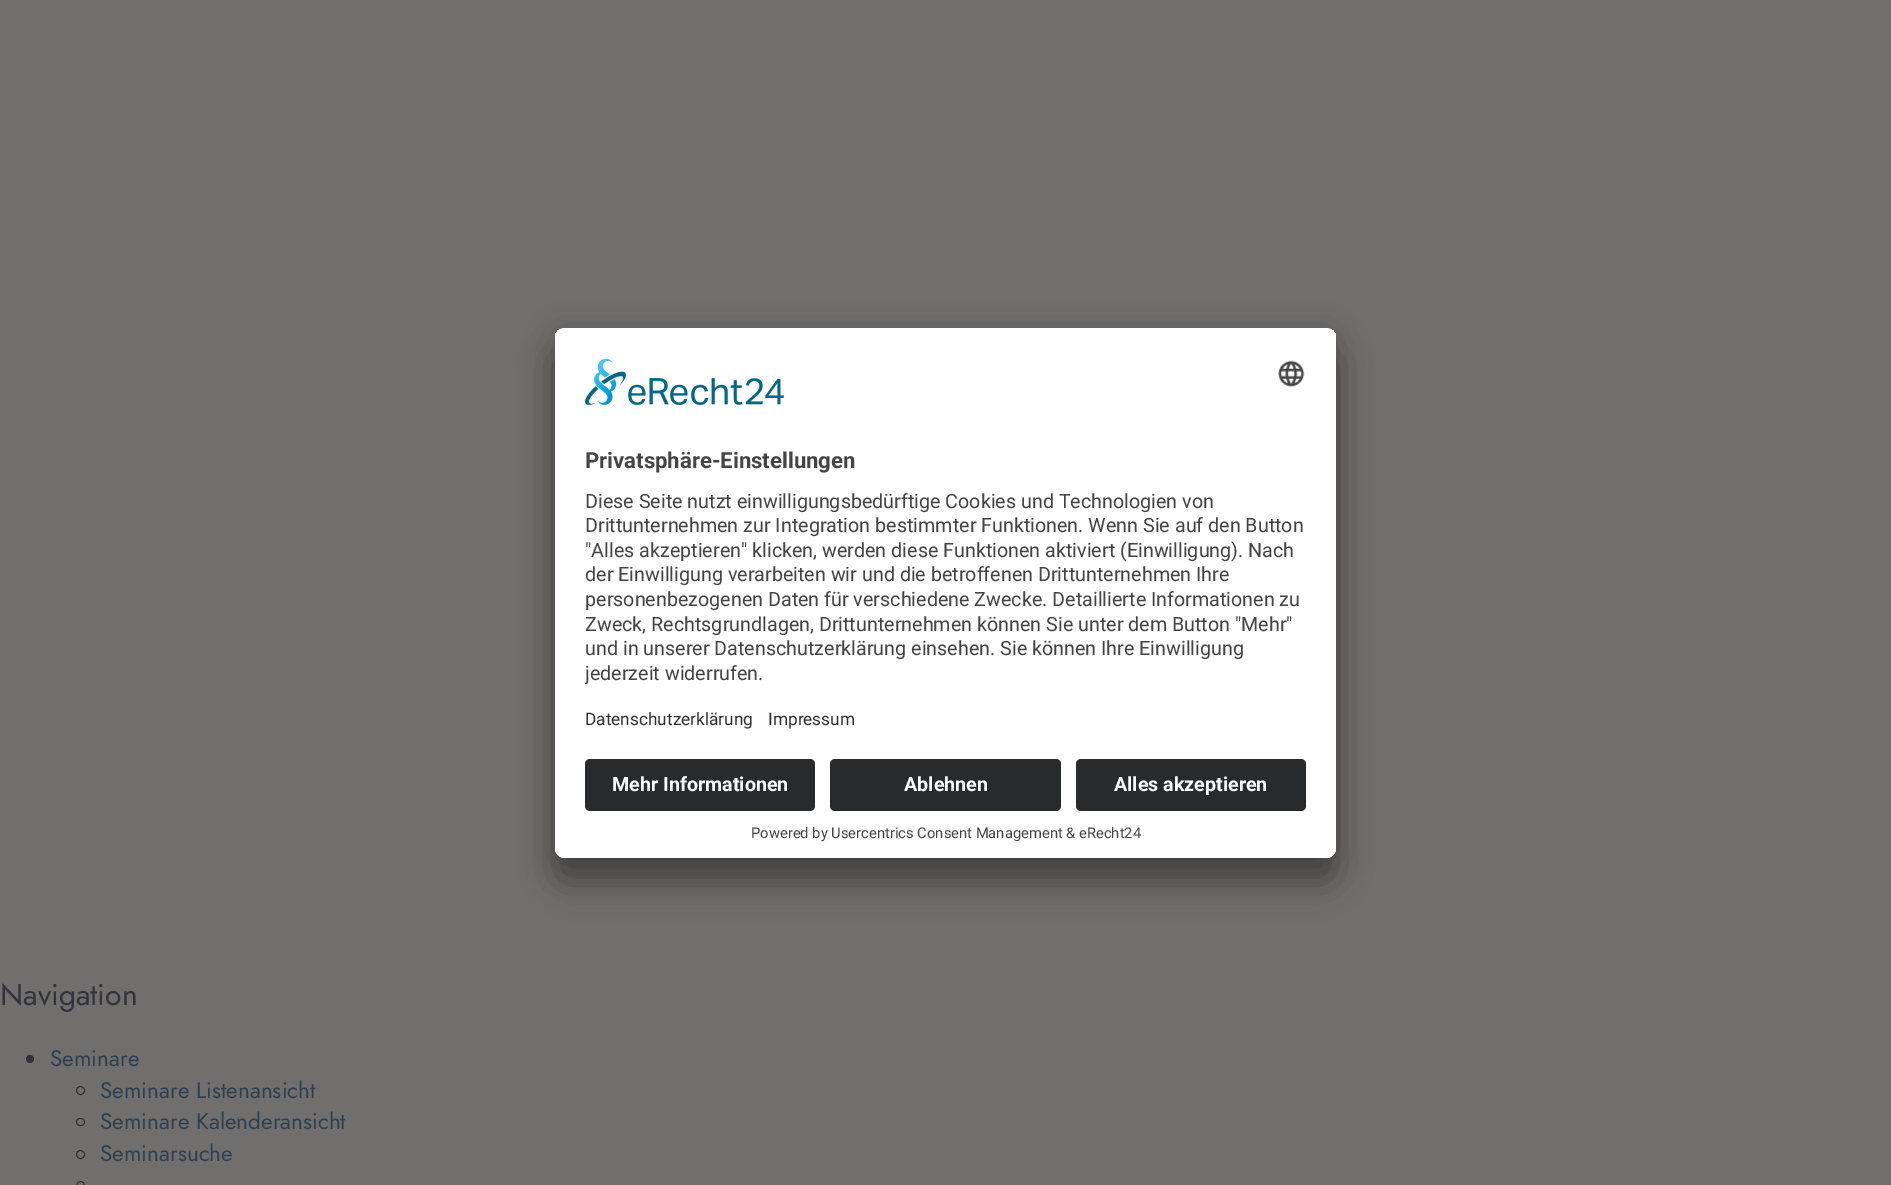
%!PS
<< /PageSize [1891 1185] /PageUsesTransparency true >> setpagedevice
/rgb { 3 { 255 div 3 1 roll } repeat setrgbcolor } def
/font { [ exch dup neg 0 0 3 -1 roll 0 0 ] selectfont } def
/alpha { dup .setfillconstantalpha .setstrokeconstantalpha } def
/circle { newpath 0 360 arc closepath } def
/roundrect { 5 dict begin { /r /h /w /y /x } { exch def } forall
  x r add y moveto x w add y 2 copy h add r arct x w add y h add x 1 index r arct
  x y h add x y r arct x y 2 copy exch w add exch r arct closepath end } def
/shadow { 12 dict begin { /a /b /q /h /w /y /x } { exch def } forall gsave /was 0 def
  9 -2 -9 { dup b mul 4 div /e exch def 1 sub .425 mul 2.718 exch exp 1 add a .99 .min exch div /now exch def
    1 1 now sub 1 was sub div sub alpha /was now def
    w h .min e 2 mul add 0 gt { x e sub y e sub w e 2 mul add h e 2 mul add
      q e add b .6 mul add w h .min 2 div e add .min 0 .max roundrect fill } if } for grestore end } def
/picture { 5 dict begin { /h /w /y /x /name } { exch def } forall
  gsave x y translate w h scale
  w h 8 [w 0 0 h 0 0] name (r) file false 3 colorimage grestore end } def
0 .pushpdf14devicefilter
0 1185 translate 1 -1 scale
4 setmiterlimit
112 111 110 rgb
0 0 1891 1185 rectfill
0 0 0 rgb
555 353 781 530 10 17.5 0.3 shadow
555 334 781 530 10 16 0.22 shadow
255 255 255 rgb
555 328 781 530 10 roundrect fill
gsave
555 328 781 530 10 roundrect clip newpath
565 328 moveto 1326 328 lineto 1331.5 328 1336 332.5 1336 338 curveto 1336 749 lineto 555 749 lineto 555 338 lineto 555 332.5 559.5 328 565 328 curveto closepath clip newpath
555 329 781 420 rectfill
grestore
(img/1.rgb) 585 359 199 46 picture
(img/2.rgb) 1278 360 27 27 picture
555 749 moveto 1336 749 lineto 1336 848 lineto 1336 853.5 1331.5 858 1326 858 curveto 565 858 lineto 559.5 858 555 853.5 555 848 curveto closepath fill
41 42 43 rgb
585 759 230 52 5 roundrect fill
830 759 231 52 5 roundrect fill
1076 759 230 52 5 roundrect fill
51 51 59 rgb
30 1059 4 circle fill
80.5 1090.5 4 circle stroke
76.5 1118.5 8 7 3.5 roundrect stroke
80.5 1154.5 4 circle stroke
80.5 1185.5 4 circle stroke
/Roboto-Bold 22.1 font
68 68 68 rgb
585 468 moveto (Privatsphäre-Einstellungen) show
/Roboto-Regular 19.7 font
[
  [(Diese Seite nutzt einwilligungsbedürftige Cookies und Technologien von) 585 508]
  [(Drittunternehmen zur Integration bestimmter Funktionen. Wenn Sie auf den Button) 585 532]
  [("Alles akzeptieren" klicken, werden diese Funktionen aktiviert \(Einwilligung\). Nach) 585 557]
  [(der Einwilligung verarbeiten wir und die betroffenen Drittunternehmen Ihre) 585 581]
  [(personenbezogenen Daten für verschiedene Zwecke. Detaillierte Informationen zu) 585 606]
  [(Zweck, Rechtsgrundlagen, Drittunternehmen können Sie unter dem Button "Mehr") 585 631]
  [(und in unserer Datenschutzerklärung einsehen. Sie können Ihre Einwilligung) 585 655]
] { aload pop moveto show } forall
gsave
585 484 721 207 rectclip
585 680 moveto (jederzeit widerrufen.) show
grestore
/Roboto-Regular 17.25 font
48 48 48 rgb
585 725 moveto (Datenschutzerklärung) show
768 725 moveto (Impressum) show
/Roboto-Bold 19.7 font
255 255 255 rgb
[
  [(Mehr Informationen) 612 791]
  [(Ablehnen) 904 791]
  [(Alles akzeptieren) 1114 791]
] { aload pop moveto show } forall
/Roboto-Regular 14.75 font
68 68 68 rgb
751 838 moveto (Powered by Usercentrics Consent Management & eRecht24) show
/Jost-Regular 30 font
51 51 59 rgb
0 1005 moveto (Navigation) show
/Jost-Regular 22.5 font
46 64 80 rgb
[
  [(Seminare) 50 1066]
  [(Seminare Listenansicht) 100 1098]
  [(Seminare Kalenderansicht) 100 1129]
  [(Seminarsuche) 100 1161]
] { aload pop moveto show } forall
.poppdf14devicefilter showpage
